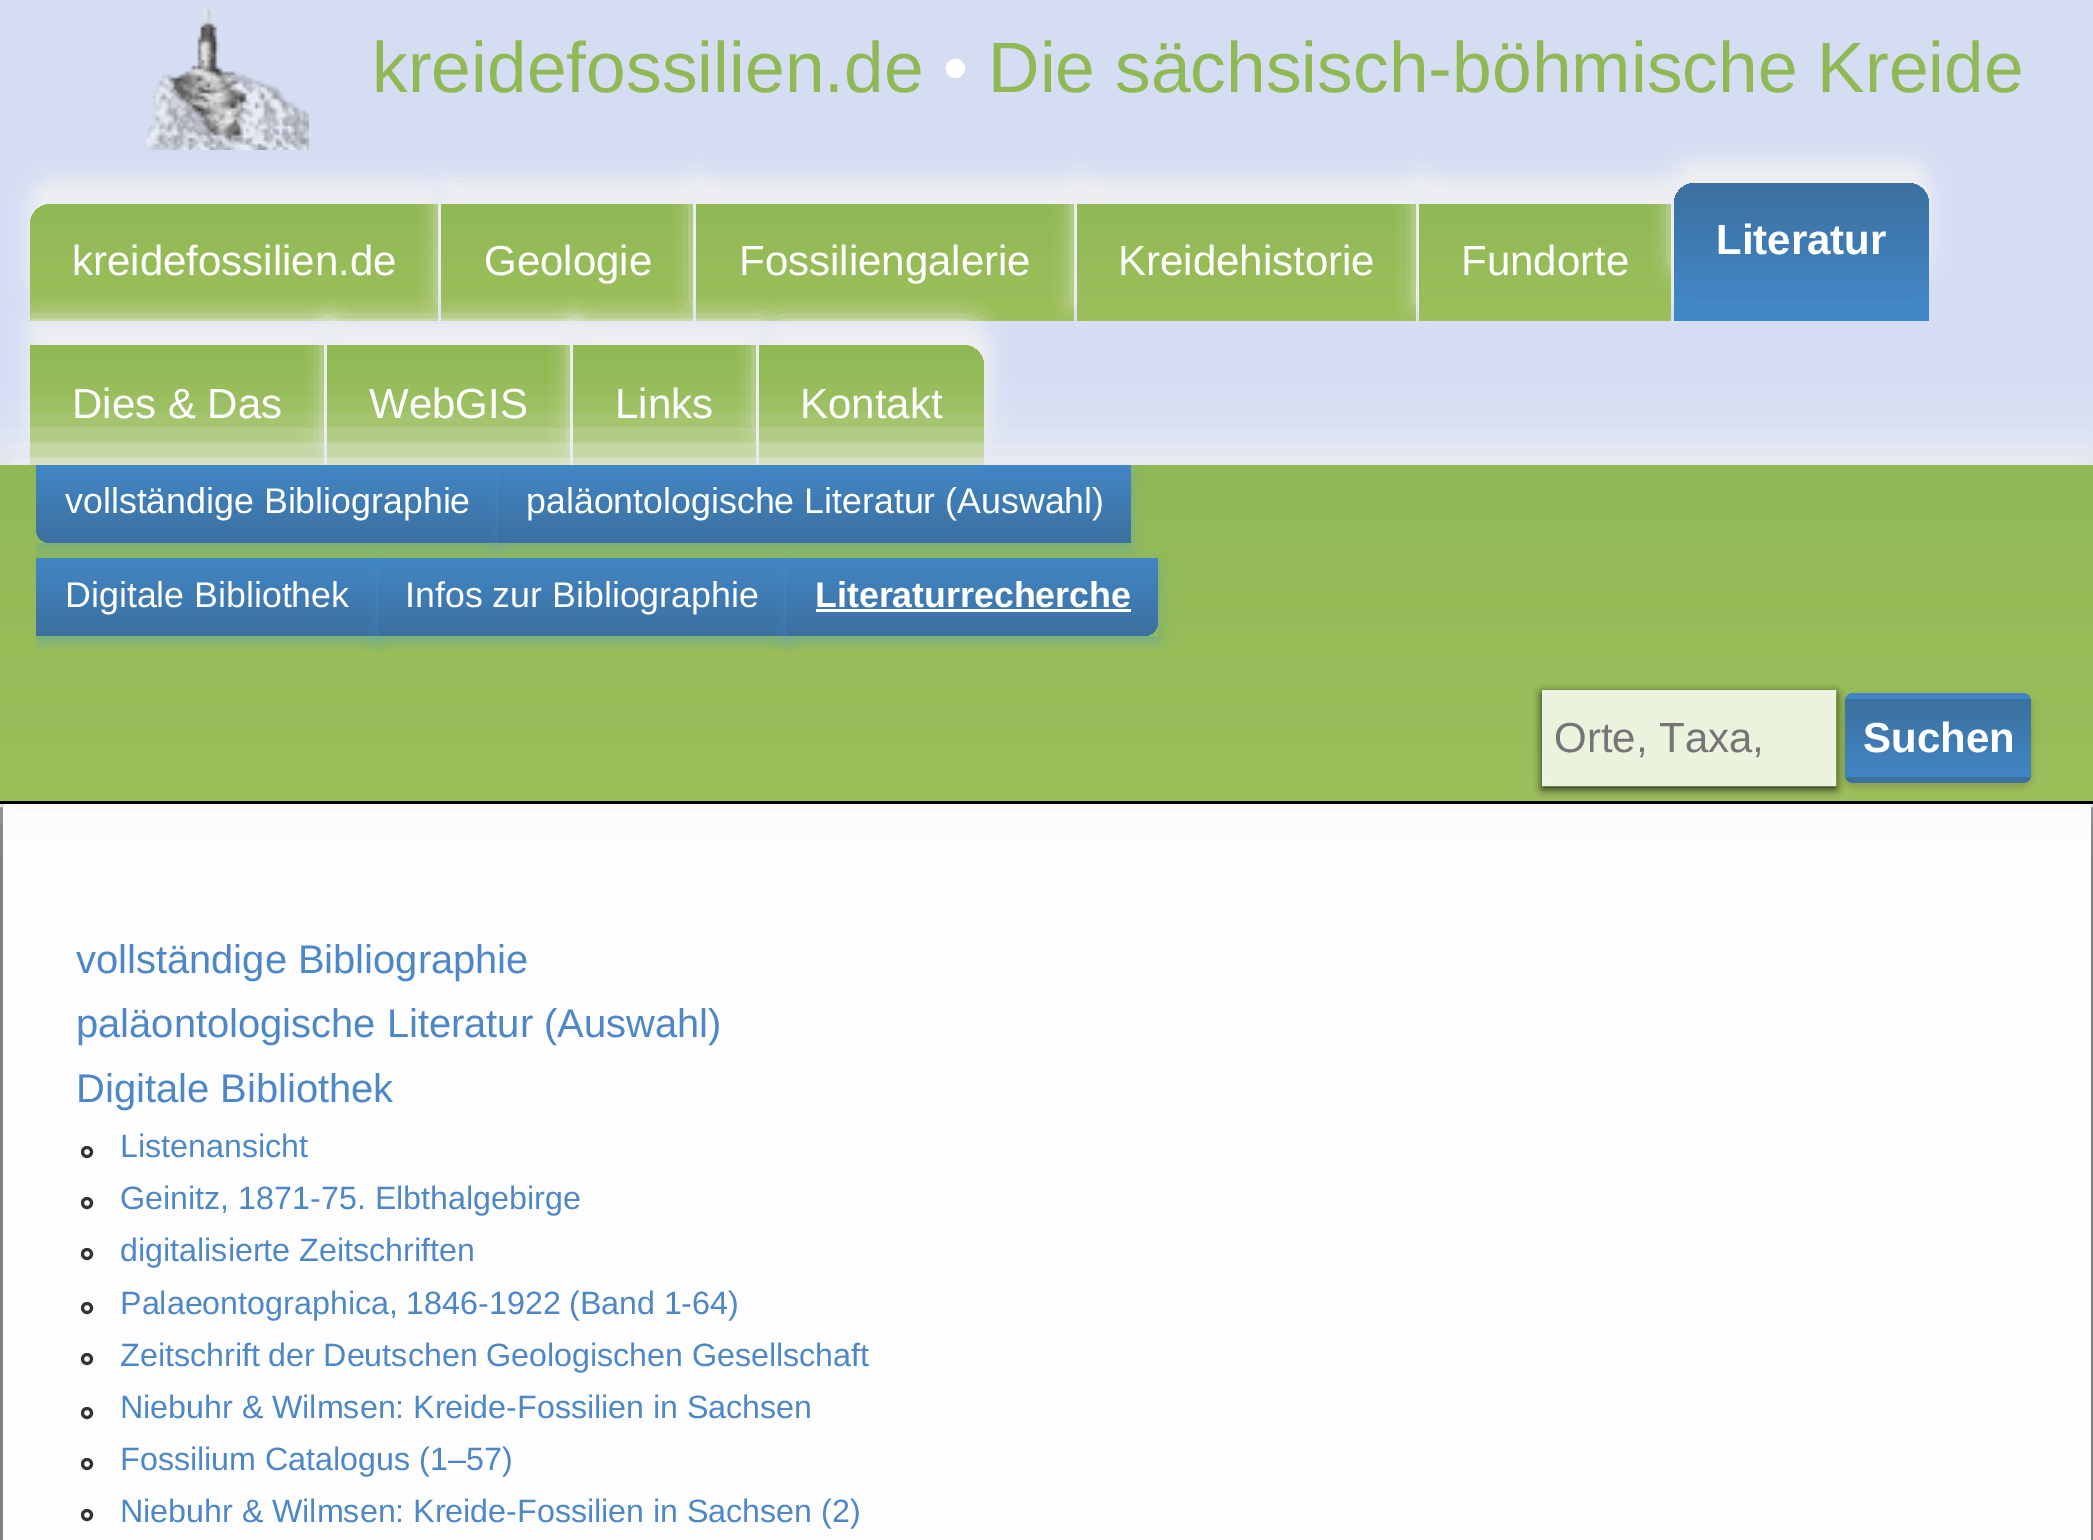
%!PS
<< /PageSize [2093 1540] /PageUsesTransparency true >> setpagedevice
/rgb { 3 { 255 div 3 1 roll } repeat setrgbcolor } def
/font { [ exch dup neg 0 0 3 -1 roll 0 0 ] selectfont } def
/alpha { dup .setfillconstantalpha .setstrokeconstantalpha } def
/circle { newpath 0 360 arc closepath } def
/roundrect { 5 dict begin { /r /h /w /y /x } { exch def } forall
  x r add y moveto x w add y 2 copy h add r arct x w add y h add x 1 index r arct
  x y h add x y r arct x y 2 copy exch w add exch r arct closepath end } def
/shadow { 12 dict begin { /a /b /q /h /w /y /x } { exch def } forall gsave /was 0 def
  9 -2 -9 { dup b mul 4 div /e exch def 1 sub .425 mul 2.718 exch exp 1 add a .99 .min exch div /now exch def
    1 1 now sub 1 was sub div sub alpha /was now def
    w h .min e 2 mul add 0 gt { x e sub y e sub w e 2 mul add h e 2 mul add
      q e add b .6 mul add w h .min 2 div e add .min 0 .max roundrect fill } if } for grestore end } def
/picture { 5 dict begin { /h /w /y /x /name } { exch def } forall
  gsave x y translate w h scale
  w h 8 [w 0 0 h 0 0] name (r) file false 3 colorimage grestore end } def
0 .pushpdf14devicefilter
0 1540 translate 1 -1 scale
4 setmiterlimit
213 221 243 rgb
0 0 2093 1540 rectfill
(img/1.rgb) 147 6 162 144 picture
240 240 240 rgb
30 180 414 123 24 10.5 1 shadow
gsave 51 204 moveto 438 204 lineto 438 321 lineto 30 321 lineto 30 225 lineto 30 213.5 39.5 204 51 204 curveto closepath clip newpath
<< /ShadingType 2 /ColorSpace /DeviceRGB /Coords [234 204 234 321] /Extend [true true] /Function << /FunctionType 2 /Domain [0 1] /C0 [0.565 0.725 0.333] /C1 [0.616 0.749 0.361] /N 1 >> >> shfill grestore
441 180 258 123 0 10.5 1 shadow
gsave 441 204 moveto 693 204 lineto 693 321 lineto 441 321 lineto closepath clip newpath
<< /ShadingType 2 /ColorSpace /DeviceRGB /Coords [567 204 567 321] /Extend [true true] /Function << /FunctionType 2 /Domain [0 1] /C0 [0.565 0.725 0.333] /C1 [0.616 0.749 0.361] /N 1 >> >> shfill grestore
696 180 384 123 0 10.5 1 shadow
gsave 696 204 moveto 1074 204 lineto 1074 321 lineto 696 321 lineto closepath clip newpath
<< /ShadingType 2 /ColorSpace /DeviceRGB /Coords [885 204 885 321] /Extend [true true] /Function << /FunctionType 2 /Domain [0 1] /C0 [0.565 0.725 0.333] /C1 [0.616 0.749 0.361] /N 1 >> >> shfill grestore
1077 180 345 123 0 10.5 1 shadow
gsave 1077 204 moveto 1416 204 lineto 1416 321 lineto 1077 321 lineto closepath clip newpath
<< /ShadingType 2 /ColorSpace /DeviceRGB /Coords [1247 204 1247 321] /Extend [true true] /Function << /FunctionType 2 /Domain [0 1] /C0 [0.565 0.725 0.333] /C1 [0.616 0.749 0.361] /N 1 >> >> shfill grestore
1419 180 258 123 0 10.5 1 shadow
66 134 197 rgb
1674 300 255 21 rectfill
gsave 1419 204 moveto 1671 204 lineto 1671 321 lineto 1419 321 lineto closepath clip newpath
<< /ShadingType 2 /ColorSpace /DeviceRGB /Coords [1545 204 1545 321] /Extend [true true] /Function << /FunctionType 2 /Domain [0 1] /C0 [0.565 0.725 0.333] /C1 [0.616 0.749 0.361] /N 1 >> >> shfill grestore
240 240 240 rgb
1674 162 255 117 21 10.5 1 shadow
gsave 1695 183 moveto 1908 183 lineto 1919.5 183 1929 192.5 1929 204 curveto 1929 300 lineto 1674 300 lineto 1674 204 lineto 1674 192.5 1683.5 183 1695 183 curveto closepath clip newpath
<< /ShadingType 2 /ColorSpace /DeviceRGB /Coords [1802 183 1802 300] /Extend [true true] /Function << /FunctionType 2 /Domain [0 1] /C0 [0.235 0.439 0.624] /C1 [0.259 0.525 0.773] /N 1 >> >> shfill grestore
30 321 300 126 0 10.5 1 shadow
gsave 30 345 moveto 324 345 lineto 324 465 lineto 30 465 lineto closepath clip newpath
<< /ShadingType 2 /ColorSpace /DeviceRGB /Coords [177 345 177 465] /Extend [true true] /Function << /FunctionType 2 /Domain [0 1] /C0 [0.565 0.725 0.333] /C1 [0.616 0.749 0.361] /N 1 >> >> shfill grestore
327 321 249 126 0 10.5 1 shadow
gsave 327 345 moveto 570 345 lineto 570 465 lineto 327 465 lineto closepath clip newpath
<< /ShadingType 2 /ColorSpace /DeviceRGB /Coords [449 345 449 465] /Extend [true true] /Function << /FunctionType 2 /Domain [0 1] /C0 [0.565 0.725 0.333] /C1 [0.616 0.749 0.361] /N 1 >> >> shfill grestore
573 321 189 126 0 10.5 1 shadow
gsave 573 345 moveto 756 345 lineto 756 465 lineto 573 465 lineto closepath clip newpath
<< /ShadingType 2 /ColorSpace /DeviceRGB /Coords [665 345 665 465] /Extend [true true] /Function << /FunctionType 2 /Domain [0 1] /C0 [0.565 0.725 0.333] /C1 [0.616 0.749 0.361] /N 1 >> >> shfill grestore
759 321 231 126 24 10.5 1 shadow
gsave 759 345 moveto 963 345 lineto 974.5 345 984 354.5 984 366 curveto 984 465 lineto 759 465 lineto closepath clip newpath
<< /ShadingType 2 /ColorSpace /DeviceRGB /Coords [872 345 872 465] /Extend [true true] /Function << /FunctionType 2 /Domain [0 1] /C0 [0.565 0.725 0.333] /C1 [0.616 0.749 0.361] /N 1 >> >> shfill grestore
253 253 253 rgb
6 804 moveto 2088 804 lineto 2090 804 2091 807 2091 810 curveto 2091 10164 lineto 2091 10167 2090 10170 2088 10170 curveto 6 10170 lineto 4 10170 3 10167 3 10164 curveto 3 810 lineto 3 807 4 804 6 804 curveto closepath fill
128 128 128 rgb
2091 807 2 733 rectfill
0 807 3 733 rectfill
240 240 240 rgb
0 450 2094 339 0 30 1 shadow
gsave 0 465 moveto 2093 465 lineto 2093 801 lineto 0 801 lineto closepath clip newpath
<< /ShadingType 2 /ColorSpace /DeviceRGB /Coords [1047 465 1047 801] /Extend [true true] /Function << /FunctionType 2 /Domain [0 1] /C0 [0.565 0.725 0.333] /C1 [0.616 0.749 0.361] /N 1 >> >> shfill grestore
gsave 1545 693 moveto 1833 693 lineto 1833 783 lineto 1545 783 lineto closepath clip newpath
<< /ShadingType 2 /ColorSpace /DeviceRGB /Coords [1047 465 1047 801] /Extend [true true] /Function << /FunctionType 2 /Domain [0 1] /C0 [0.914 0.945 0.867] /C1 [0.922 0.949 0.871] /N 1 >> >> shfill grestore
0 0 0 rgb
0 801 2093 3 rectfill
gsave
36 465 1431 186 rectclip
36 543 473 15 rectclip
75 146 211 rgb
36 471 462 78 0 7.5 0.4 shadow
grestore
gsave 36 465 moveto 498 465 lineto 498 543 lineto 51 543 lineto 42.5 543 36 536.5 36 528 curveto closepath clip newpath
<< /ShadingType 2 /ColorSpace /DeviceRGB /Coords [267 465 267 543] /Extend [true true] /Function << /FunctionType 2 /Domain [0 1] /C0 [0.259 0.525 0.773] /C1 [0.235 0.439 0.624] /N 1 >> >> shfill grestore
gsave
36 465 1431 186 rectclip
75 146 211 rgb
498 471 633 78 0 7.5 0.4 shadow
grestore
gsave 498 465 moveto 1131 465 lineto 1131 543 lineto 498 543 lineto closepath clip newpath
<< /ShadingType 2 /ColorSpace /DeviceRGB /Coords [815 465 815 543] /Extend [true true] /Function << /FunctionType 2 /Domain [0 1] /C0 [0.259 0.525 0.773] /C1 [0.235 0.439 0.624] /N 1 >> >> shfill grestore
gsave
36 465 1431 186 rectclip
75 146 211 rgb
36 564 342 78 0 7.5 0.4 shadow
grestore
gsave 36 558 moveto 378 558 lineto 378 636 lineto 36 636 lineto closepath clip newpath
<< /ShadingType 2 /ColorSpace /DeviceRGB /Coords [207 558 207 636] /Extend [true true] /Function << /FunctionType 2 /Domain [0 1] /C0 [0.259 0.525 0.773] /C1 [0.235 0.439 0.624] /N 1 >> >> shfill grestore
gsave
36 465 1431 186 rectclip
75 146 211 rgb
378 564 408 78 0 7.5 0.4 shadow
grestore
gsave 378 558 moveto 786 558 lineto 786 636 lineto 378 636 lineto closepath clip newpath
<< /ShadingType 2 /ColorSpace /DeviceRGB /Coords [582 558 582 636] /Extend [true true] /Function << /FunctionType 2 /Domain [0 1] /C0 [0.259 0.525 0.773] /C1 [0.235 0.439 0.624] /N 1 >> >> shfill grestore
gsave
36 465 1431 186 rectclip
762 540 moveto 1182 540 lineto 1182 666 lineto 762 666 lineto closepath 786 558 moveto 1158 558 lineto 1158 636 lineto 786 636 lineto closepath eoclip newpath
75 146 211 rgb
786 564 372 78 0 7.5 0.4 shadow
grestore
gsave 786 558 moveto 1158 558 lineto 1158 621 lineto 1158 629.5 1151.5 636 1143 636 curveto 786 636 lineto closepath clip newpath
<< /ShadingType 2 /ColorSpace /DeviceRGB /Coords [972 558 972 636] /Extend [true true] /Function << /FunctionType 2 /Domain [0 1] /C0 [0.259 0.525 0.773] /C1 [0.235 0.439 0.624] /N 1 >> >> shfill grestore
255 255 255 rgb
816 609 315 3 rectfill
gsave
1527 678 moveto 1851 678 lineto 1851 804 lineto 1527 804 lineto closepath 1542 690 moveto 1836 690 lineto 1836 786 lineto 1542 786 lineto closepath eoclip newpath
0 0 0 rgb
1542 693 294 96 0 4.5 0.8 shadow
grestore
237 243 225 rgb
3 setlinewidth
1543.5 691.5 291 93 rectstroke
0 0 0 rgb
1845 696 186 90 9 4.5 0.2 shadow
gsave
1845 693 186 90 9 roundrect clip newpath
gsave 1845 693 moveto 2031 693 lineto 2031 699 lineto 1845 699 lineto closepath clip newpath
<< /ShadingType 2 /ColorSpace /DeviceRGB /Coords [1938 621 1938 699] /Extend [true true] /Function << /FunctionType 2 /Domain [0 1] /C0 [0.235 0.439 0.624] /C1 [0.259 0.525 0.773] /N 1 >> >> shfill grestore
gsave 1845 699 moveto 2031 699 lineto 2031 777 lineto 1845 777 lineto closepath clip newpath
<< /ShadingType 2 /ColorSpace /DeviceRGB /Coords [1938 699 1938 777] /Extend [true true] /Function << /FunctionType 2 /Domain [0 1] /C0 [0.235 0.439 0.624] /C1 [0.259 0.525 0.773] /N 1 >> >> shfill grestore
gsave 1845 777 moveto 2031 777 lineto 2031 783 lineto 1845 783 lineto closepath clip newpath
<< /ShadingType 2 /ColorSpace /DeviceRGB /Coords [1938 777 1938 855] /Extend [true true] /Function << /FunctionType 2 /Domain [0 1] /C0 [0.235 0.439 0.624] /C1 [0.259 0.525 0.773] /N 1 >> >> shfill grestore
grestore
51 51 51 rgb
87 1152 4.5 circle stroke
87 1203 4.5 circle stroke
87 1254 4.5 circle stroke
87 1308 4.5 circle stroke
87 1359 4.5 circle stroke
87 1413 4.5 circle stroke
87 1464 4.5 circle stroke
87 1515 4.5 circle stroke
/LiberationSans-Regular 71.4 font
144 185 85 rgb
372 92 moveto (kreidefossilien.de) show
255 255 255 rgb
943 92 moveto (•) show
144 185 85 rgb
988 92 moveto (Die sächsisch-böhmische Kreide) show
/LiberationSans-Bold 42 font
255 255 255 rgb
1716 254 moveto (Literatur) show
/LiberationSans-Regular 42 font
[
  [(kreidefossilien.de) 72 275]
  [(Geologie) 484 275]
  [(Fossiliengalerie) 739 275]
  [(Kreidehistorie) 1118 275]
  [(Fundorte) 1461 275]
  [(Dies & Das) 72 418]
  [(WebGIS) 369 418]
  [(Links) 615 418]
  [(Kontakt) 800 418]
] { aload pop moveto show } forall
/LiberationSans-Regular 35.75 font
[
  [(vollständige Bibliographie) 65 513]
  [(paläontologische Literatur \(Auswahl\)) 526 513]
  [(Digitale Bibliothek) 65 607]
  [(Infos zur Bibliographie) 405 607]
] { aload pop moveto show } forall
/LiberationSans-Bold 35.75 font
815 607 moveto (Literaturrecherche) show
/LiberationSans-Regular 42 font
117 117 117 rgb
1554 752 moveto (Orte, Taxa,) show
/LiberationSans-Bold 42 font
255 255 255 rgb
1863 752 moveto (Suchen) show
/LiberationSans-Regular 39.9 font
77 135 199 rgb
[
  [(vollständige Bibliographie) 76 973]
  [(paläontologische Literatur \(Auswahl\)) 76 1037]
  [(Digitale Bibliothek) 76 1102]
] { aload pop moveto show } forall
/LiberationSans-Regular 32.25 font
[
  [(Listenansicht) 120 1157]
  [(Geinitz, 1871-75. Elbthalgebirge) 120 1209]
  [(digitalisierte Zeitschriften) 120 1261]
] { aload pop moveto show } forall
120 1314 moveto -0.5 0 32 (Palaeontographica, 1846-1922 \(Band 1-64\)) widthshow
120 1366 moveto -0.5 0 32 (Zeitschrift der Deutschen Geologischen Gesellschaft) widthshow
120 1418 moveto -0.25 0 32 (Niebuhr & Wilmsen: Kreide-Fossilien in Sachsen) widthshow
120 1470 moveto (Fossilium Catalogus \(1–57\)) show
120 1522 moveto -0.25 0 32 (Niebuhr & Wilmsen: Kreide-Fossilien in Sachsen \(2\)) widthshow
.poppdf14devicefilter showpage
